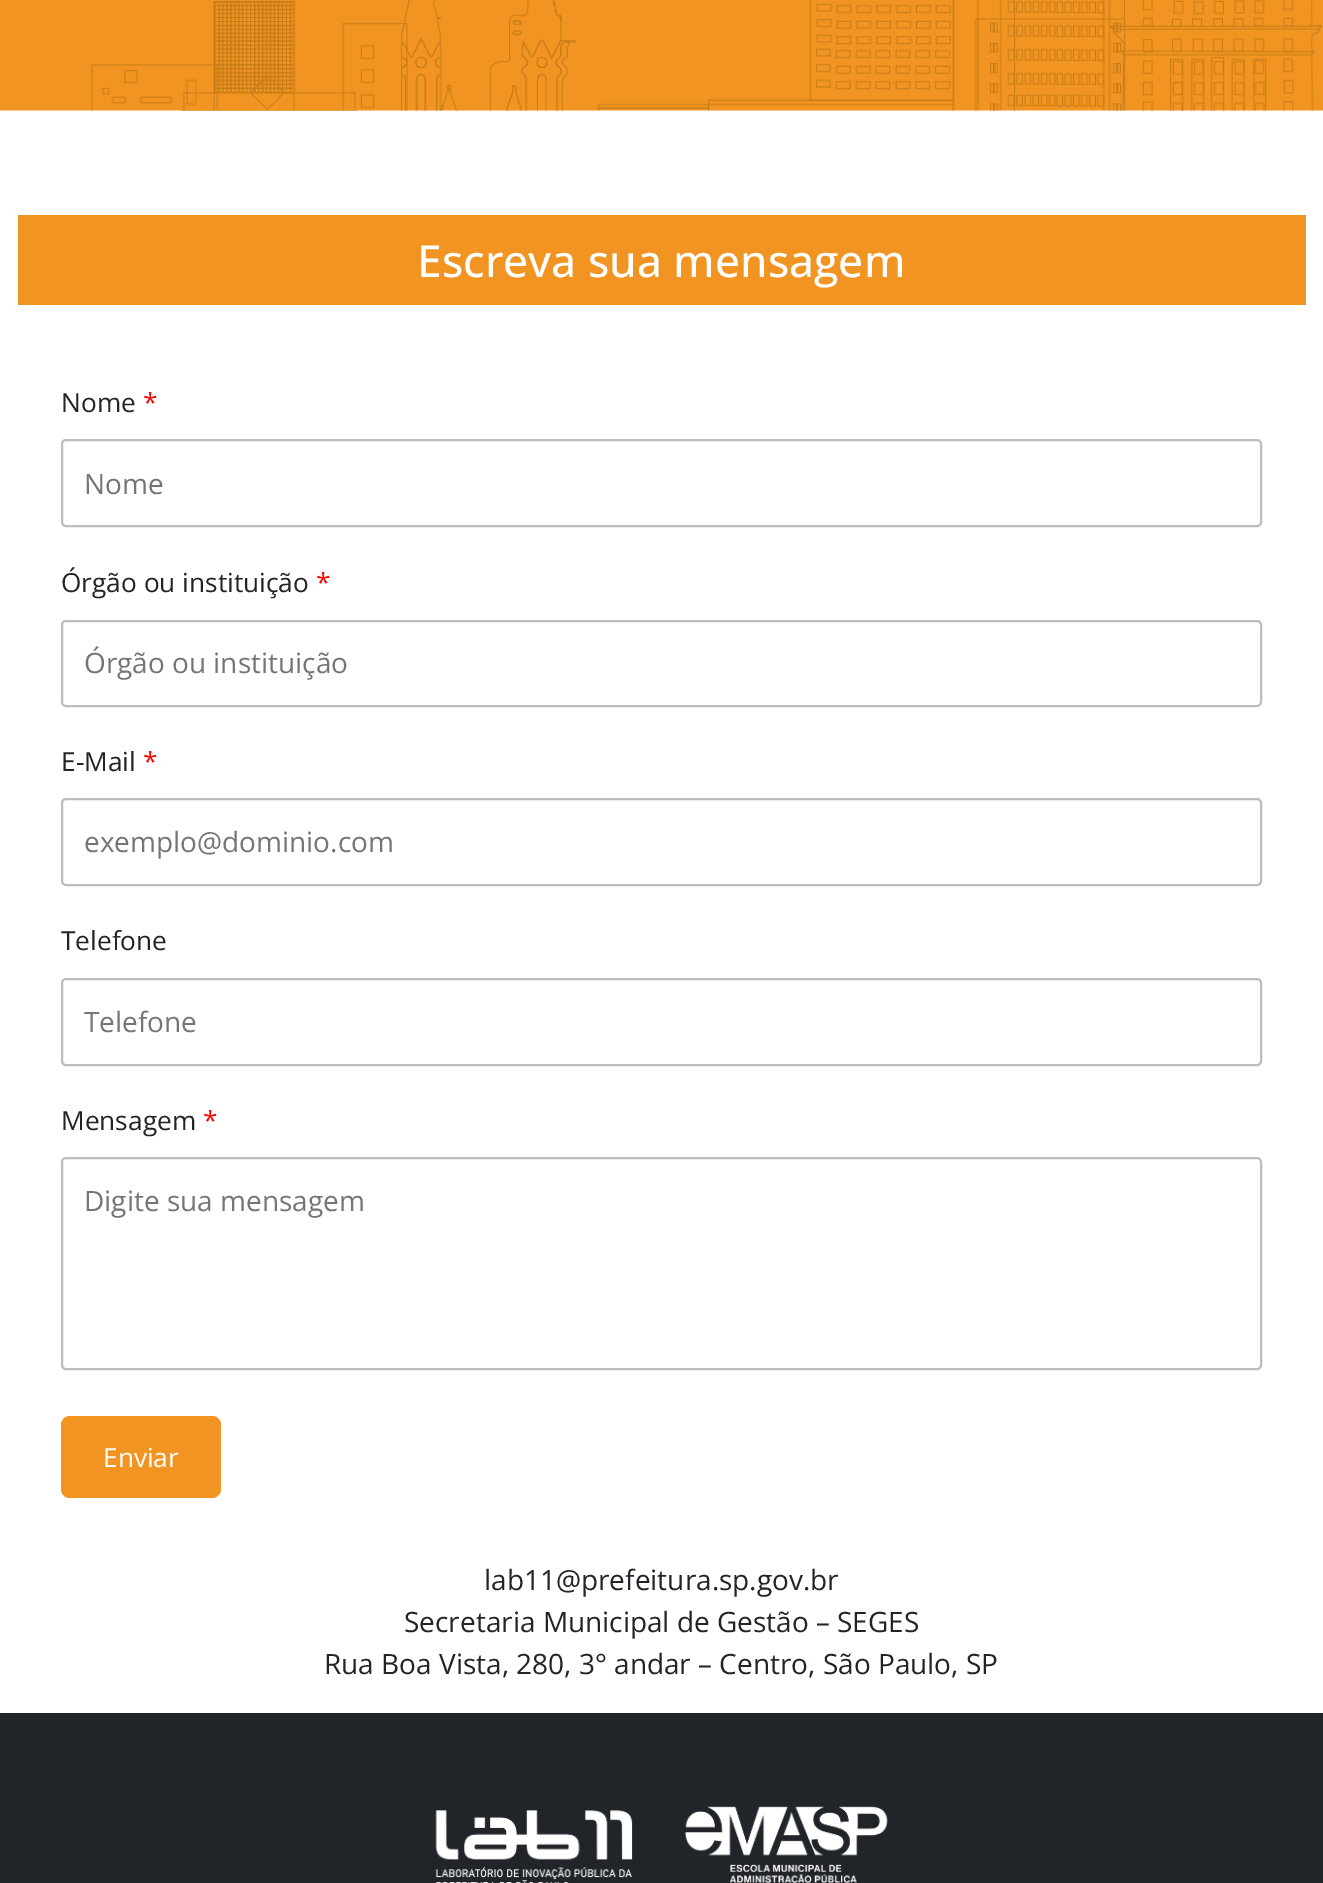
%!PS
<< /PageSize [1323 1883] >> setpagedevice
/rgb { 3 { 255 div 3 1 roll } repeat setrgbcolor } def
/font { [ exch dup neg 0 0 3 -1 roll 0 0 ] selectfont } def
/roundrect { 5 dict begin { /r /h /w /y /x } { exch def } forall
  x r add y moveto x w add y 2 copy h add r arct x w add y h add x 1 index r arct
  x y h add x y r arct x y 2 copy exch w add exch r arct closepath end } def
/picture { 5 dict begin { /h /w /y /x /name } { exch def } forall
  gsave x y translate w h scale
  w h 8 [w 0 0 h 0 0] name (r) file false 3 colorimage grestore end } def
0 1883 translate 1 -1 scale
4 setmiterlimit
255 255 255 rgb
0 0 1323 1883 rectfill
242 148 34 rgb
0 0 1323 110 rectfill
248 201 145 rgb
0 110 1323 1 rectfill
(img/1.rgb) 91 0 1231 111 picture
242 148 34 rgb
18 215 1288 90 rectfill
189 189 189 rgb
2 setlinewidth
62 440 1199 86 4 roundrect stroke
62 621 1199 85 4 roundrect stroke
62 799 1199 86 4 roundrect stroke
62 979 1199 86 4 roundrect stroke
62 1158 1199 211 4 roundrect stroke
242 148 34 rgb
61 1416 160 82 9 roundrect fill
33 37 41 rgb
0 1713 1323 170 rectfill
(img/2.rgb) 435 1810 198 73 picture
(img/3.rgb) 684 1806 204 77 picture
/OpenSans-Medium 44.25 font
255 255 255 rgb
417 277 moveto (Escreva sua mensagem) show
/OpenSans-Regular 26.25 font
33 37 41 rgb
61 412 moveto (Nome) show
255 0 0 rgb
143 412 moveto (*) show
/OpenSans-Regular 28 font
117 117 117 rgb
84 494 moveto (Nome) show
/OpenSans-Regular 26.25 font
33 37 41 rgb
61 592 moveto (Órgão ou instituição) show
255 0 0 rgb
316 592 moveto (*) show
/OpenSans-Regular 28 font
117 117 117 rgb
84 673 moveto (Órgão ou instituição) show
/OpenSans-Regular 26.25 font
33 37 41 rgb
61 771 moveto (E-Mail) show
255 0 0 rgb
143 771 moveto (*) show
/OpenSans-Regular 28 font
117 117 117 rgb
84 852 moveto (exemplo@dominio.com) show
/OpenSans-Regular 26.25 font
33 37 41 rgb
61 950 moveto (Telefone) show
/OpenSans-Regular 28 font
117 117 117 rgb
84 1032 moveto (Telefone) show
/OpenSans-Regular 26.25 font
33 37 41 rgb
61 1130 moveto (Mensagem) show
255 0 0 rgb
203 1130 moveto (*) show
/OpenSans-Regular 28 font
117 117 117 rgb
84 1211 moveto (Digite sua mensagem) show
/OpenSans-Regular 26.25 font
255 255 255 rgb
103 1467 moveto (Enviar) show
/OpenSans-Regular 28 font
33 37 41 rgb
[
  [(lab11@prefeitura.sp.gov.br) 484 1590]
  [(Secretaria Municipal de Gestão – SEGES) 404 1632]
  [(Rua Boa Vista, 280, 3° andar – Centro, São Paulo, SP) 324 1674]
] { aload pop moveto show } forall
showpage
